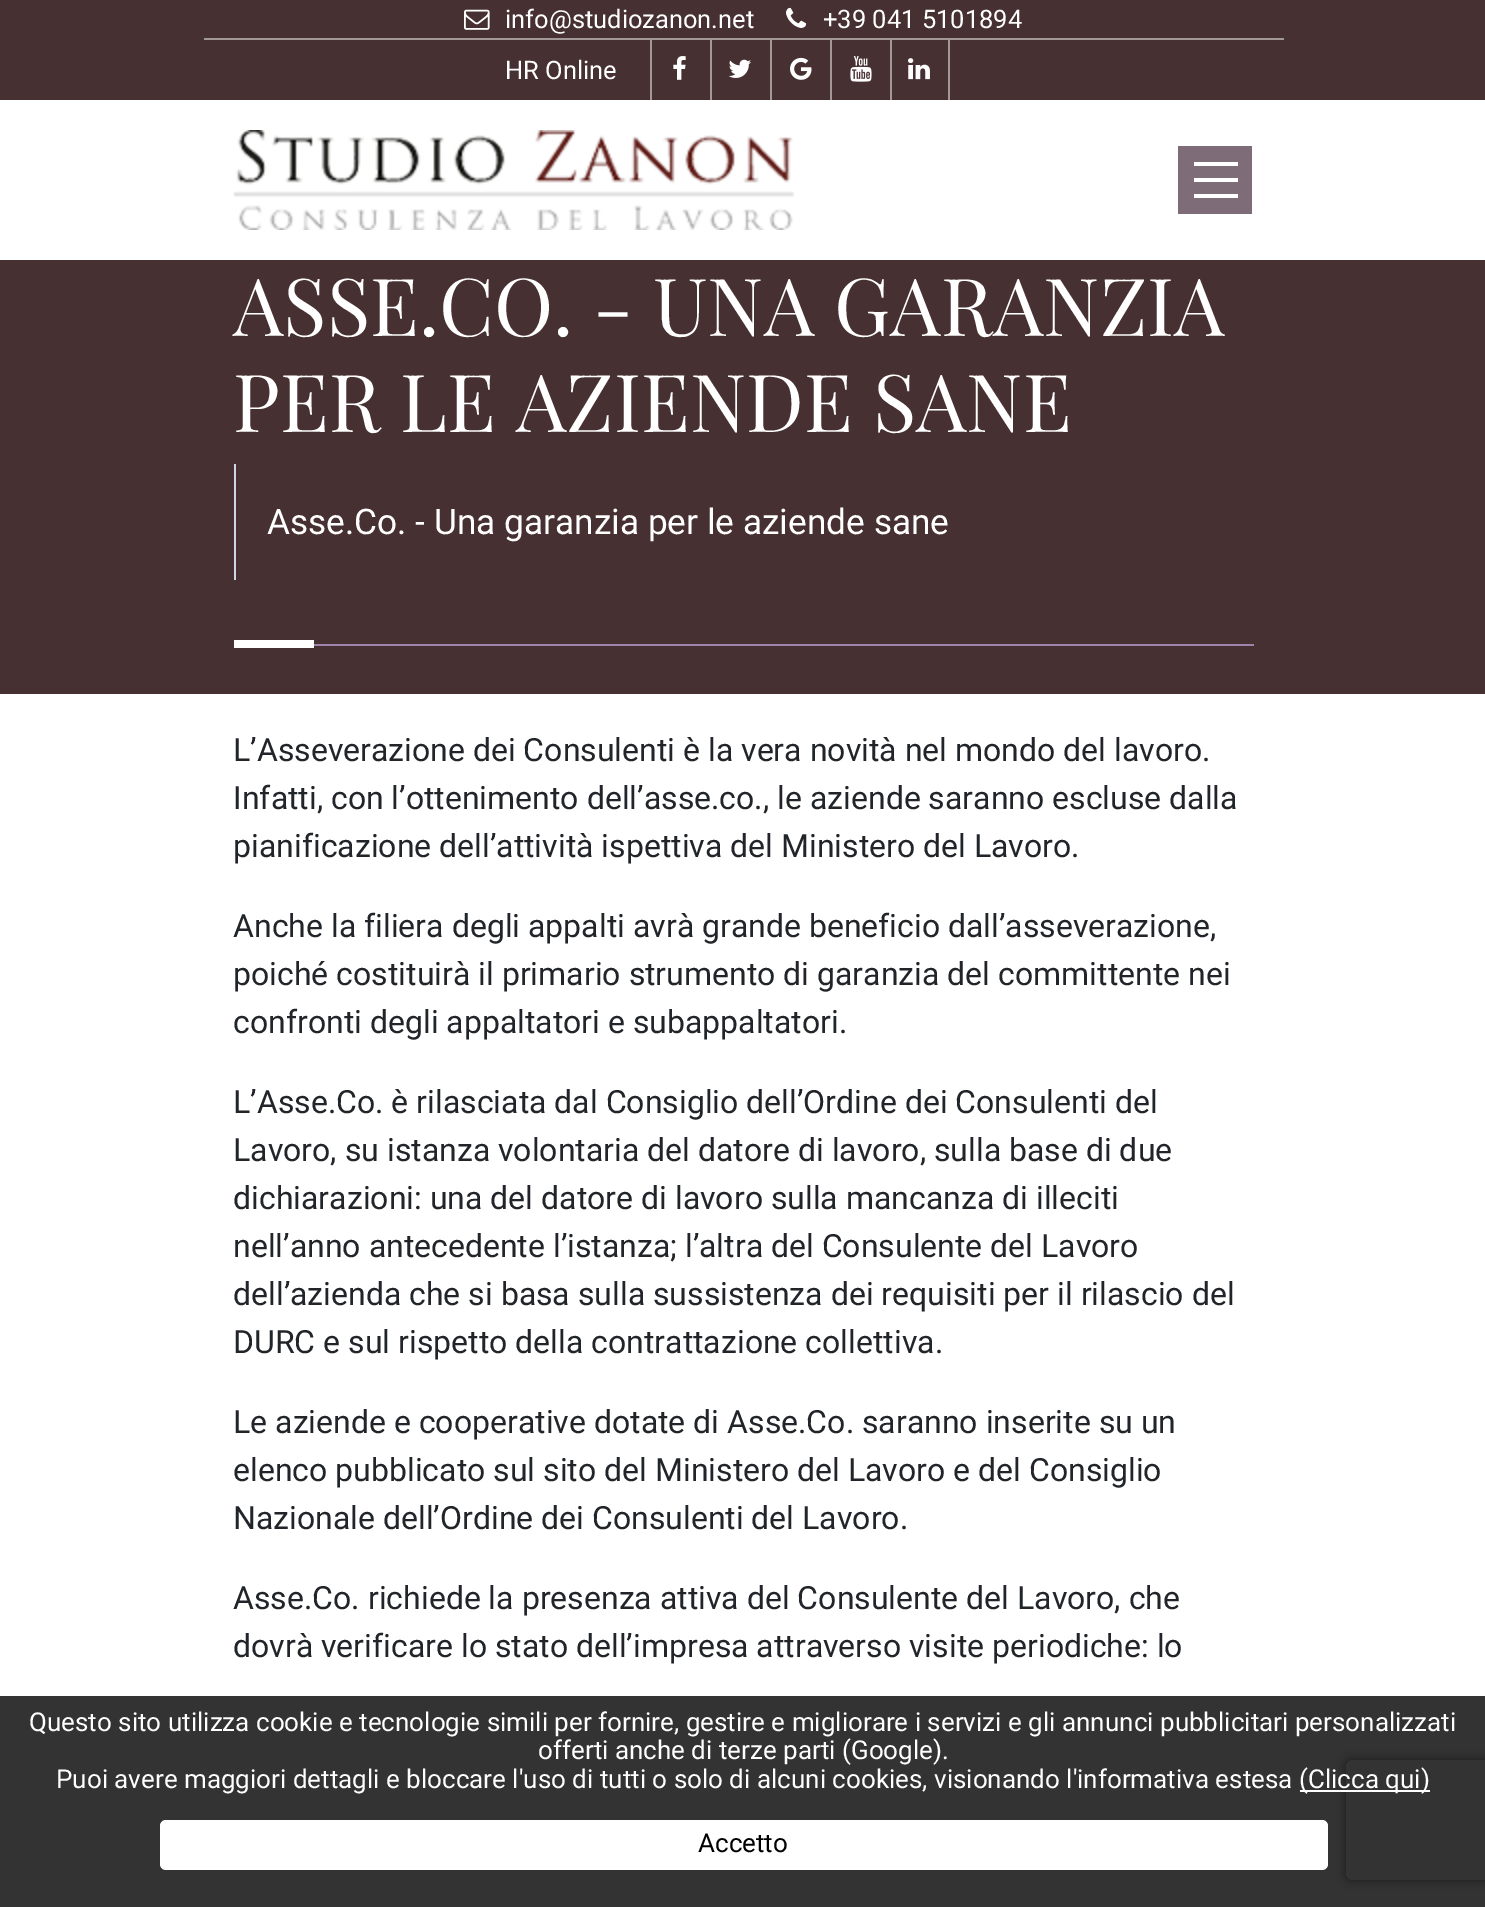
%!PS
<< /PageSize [1485 1907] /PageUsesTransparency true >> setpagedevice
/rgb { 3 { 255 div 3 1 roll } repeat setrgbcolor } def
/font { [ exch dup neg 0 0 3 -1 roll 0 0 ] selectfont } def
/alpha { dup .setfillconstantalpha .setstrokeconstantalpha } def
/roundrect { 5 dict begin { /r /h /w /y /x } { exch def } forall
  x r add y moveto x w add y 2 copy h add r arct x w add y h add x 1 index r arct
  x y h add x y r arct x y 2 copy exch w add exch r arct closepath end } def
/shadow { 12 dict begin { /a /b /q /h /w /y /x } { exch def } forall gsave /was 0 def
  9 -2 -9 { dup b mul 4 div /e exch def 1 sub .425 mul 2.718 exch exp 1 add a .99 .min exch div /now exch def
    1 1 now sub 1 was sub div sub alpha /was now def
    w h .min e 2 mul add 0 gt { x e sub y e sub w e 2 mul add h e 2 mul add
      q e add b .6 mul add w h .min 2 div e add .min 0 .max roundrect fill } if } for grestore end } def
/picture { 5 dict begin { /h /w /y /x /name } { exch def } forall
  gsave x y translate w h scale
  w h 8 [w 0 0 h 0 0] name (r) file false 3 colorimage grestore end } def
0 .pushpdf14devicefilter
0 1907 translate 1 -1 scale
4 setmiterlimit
255 255 255 rgb
0 0 1485 1907 rectfill
71 48 49 rgb
0 0 1485 100 rectfill
163 152 152 rgb
204 38 1080 2 rectfill
(img/1.rgb) 464 9 26 21 picture
(img/2.rgb) 786 7 21 21 picture
650 40 2 60 rectfill
(img/3.rgb) 673 56 13 24 picture
710 40 2 60 rectfill
(img/4.rgb) 729 59 22 19 picture
770 40 2 60 rectfill
(img/5.rgb) 790 57 22 23 picture
830 40 2 60 rectfill
(img/6.rgb) 850 56 22 26 picture
948 40 2 60 rectfill
890 40 2 60 rectfill
(img/7.rgb) 908 58 22 22 picture
(img/8.rgb) 233 130 561 100 picture
[
  [1178 146 74 68 126 108 120]
  [1194 162 44 4 255 255 255]
  [1194 178 44 4 255 255 255]
  [1194 194 44 4 255 255 255]
  [0 260 1485 434 71 48 49]
  [234 464 2 116 204 217 226]
  [314 644 940 2 157 133 173]
  [234 640 80 8 255 255 255]
] { aload pop rgb rectfill } forall
gsave
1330 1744 moveto 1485 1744 lineto 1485 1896 lineto 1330 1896 lineto closepath 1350 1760 moveto 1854 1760 lineto 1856 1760 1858 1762 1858 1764 curveto 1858 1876 lineto 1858 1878 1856 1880 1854 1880 curveto 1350 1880 lineto 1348 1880 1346 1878 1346 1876 curveto 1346 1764 lineto 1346 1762 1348 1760 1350 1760 curveto closepath eoclip newpath
128 128 128 rgb
1346 1760 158 120 4 5 1 shadow
grestore
0.8 alpha
0 0 0 rgb
0 1696 1485 211 rectfill
1 alpha
255 255 255 rgb
1300 1790 130 2 rectfill
160 1820 1168 50 6 roundrect fill
/Roboto-Regular 25.5 font
[
  [(info@studiozanon.net) 505 28]
  [(+39 041 5101894) 823 28]
  [(HR Online) 505 79]
] { aload pop moveto show } forall
/PlayfairDisplay-Regular 80 font
233 336 moveto (ASSE.CO. - UNA GARANZIA) show
233 432 moveto (PER LE AZIENDE SANE) show
/Roboto-Regular 35.25 font
267 534 moveto (Asse.Co. - Una garanzia per le aziende sane) show
/Roboto-Regular 32 font
33 37 41 rgb
[
  [(L’Asseverazione dei Consulenti è la vera novità nel mondo del lavoro.) 233 761]
  [(Infatti, con l’ottenimento dell’asse.co., le aziende saranno escluse dalla) 233 809]
  [(pianificazione dell’attività ispettiva del Ministero del Lavoro.) 233 857]
  [(Anche la filiera degli appalti avrà grande beneficio dall’asseverazione,) 233 937]
  [(poiché costituirà il primario strumento di garanzia del committente nei) 233 985]
  [(confronti degli appaltatori e subappaltatori.) 233 1033]
  [(L’Asse.Co. è rilasciata dal Consiglio dell’Ordine dei Consulenti del) 233 1113]
  [(Lavoro, su istanza volontaria del datore di lavoro, sulla base di due) 233 1161]
  [(dichiarazioni: una del datore di lavoro sulla mancanza di illeciti) 233 1209]
  [(nell’anno antecedente l’istanza; l’altra del Consulente del Lavoro) 233 1257]
  [(dell’azienda che si basa sulla sussistenza dei requisiti per il rilascio del) 233 1305]
  [(DURC e sul rispetto della contrattazione collettiva.) 233 1353]
  [(Le aziende e cooperative dotate di Asse.Co. saranno inserite su un) 233 1433]
  [(elenco pubblicato sul sito del Ministero del Lavoro e del Consiglio) 233 1481]
  [(Nazionale dell’Ordine dei Consulenti del Lavoro.) 233 1529]
  [(Asse.Co. richiede la presenza attiva del Consulente del Lavoro, che) 233 1609]
  [(dovrà verificare lo stato dell’impresa attraverso visite periodiche: lo) 233 1657]
] { aload pop moveto show } forall
/Roboto-Regular 26 font
255 255 255 rgb
[
  [(Questo sito utilizza cookie e tecnologie simili per fornire, gestire e migliorare i servizi e gli annunci pubblicitari personalizzati) 29 1731]
  [(offerti anche di terze parti \(Google\).) 538 1759]
  [(Puoi avere maggiori dettagli e bloccare l'uso di tutti o solo di alcuni cookies, visionando l'informativa estesa) 56 1788]
  [(\(Clicca qui\)) 1299 1788]
] { aload pop moveto show } forall
0 0 0 rgb
698 1852 moveto (Accetto) show
.poppdf14devicefilter showpage
